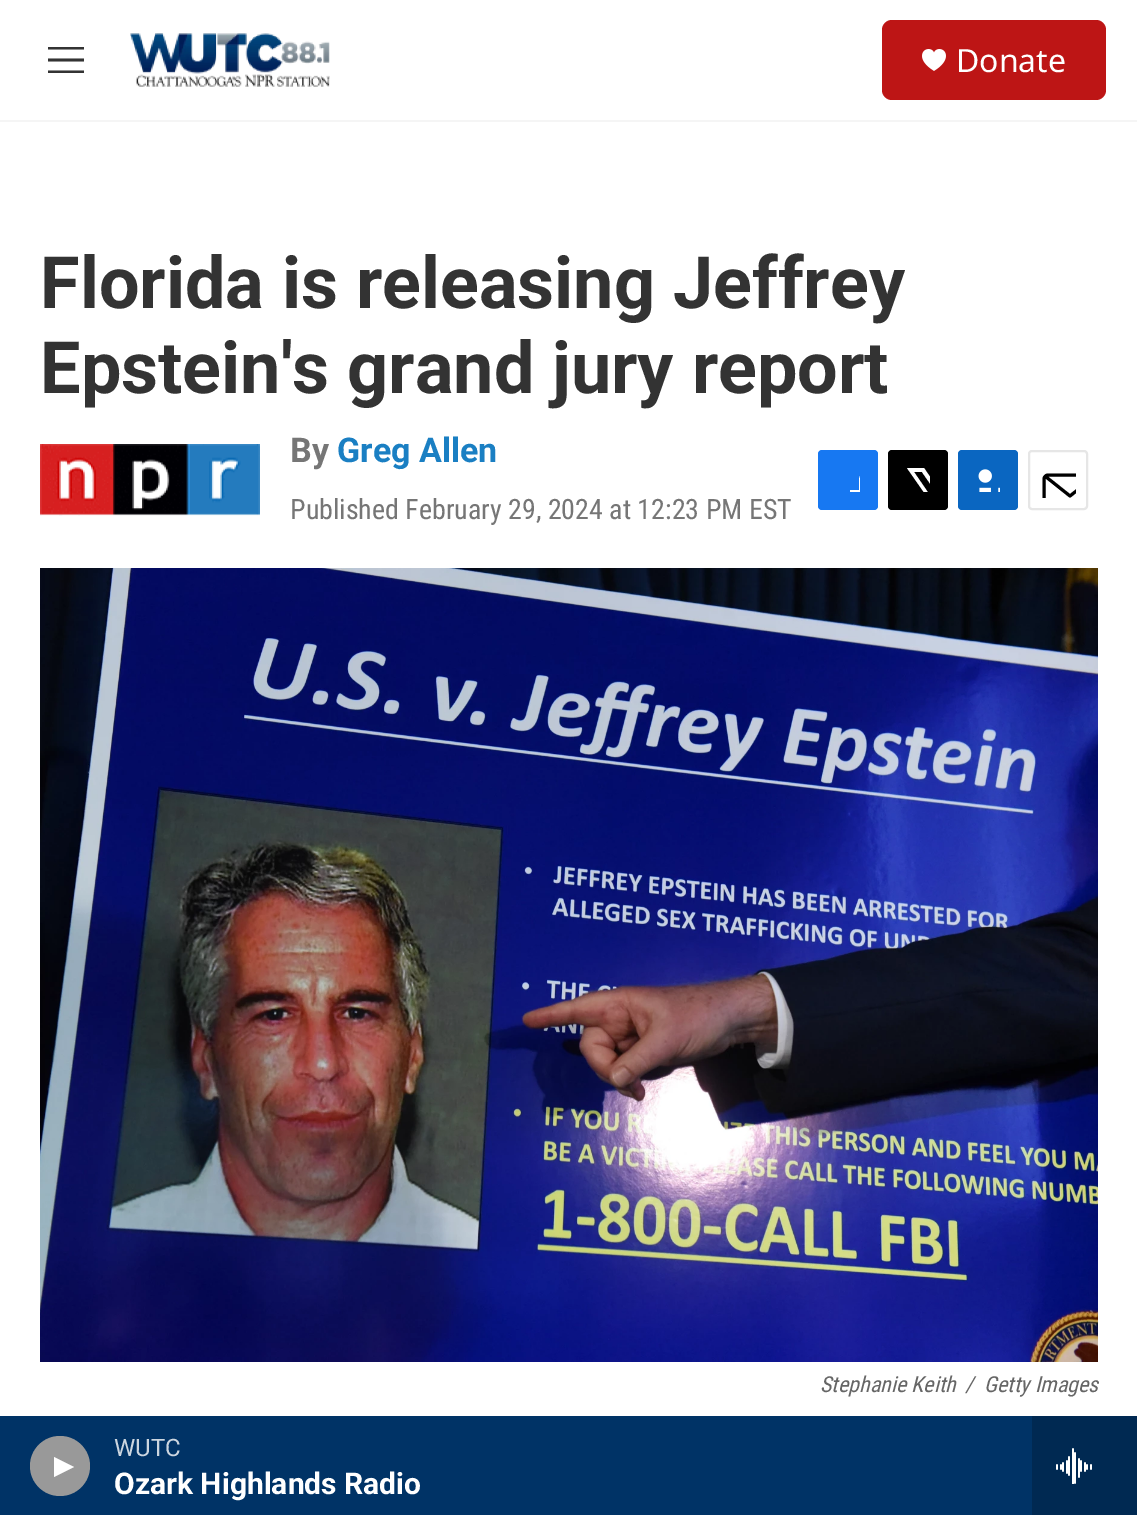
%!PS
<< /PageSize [1137 1515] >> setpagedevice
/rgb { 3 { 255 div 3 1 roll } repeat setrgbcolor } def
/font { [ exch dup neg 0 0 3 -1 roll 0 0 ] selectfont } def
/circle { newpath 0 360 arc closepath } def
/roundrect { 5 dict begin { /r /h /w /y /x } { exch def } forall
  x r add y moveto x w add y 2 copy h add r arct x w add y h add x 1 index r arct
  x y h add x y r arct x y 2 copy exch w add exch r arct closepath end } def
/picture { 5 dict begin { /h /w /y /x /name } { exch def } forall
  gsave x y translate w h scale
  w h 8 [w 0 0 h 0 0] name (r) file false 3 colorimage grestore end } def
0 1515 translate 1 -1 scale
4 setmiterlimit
255 255 255 rgb
0 0 1137 1515 rectfill
245 245 245 rgb
0 120 1137 2 rectfill
51 51 51 rgb
48 61.5 moveto 48 58.5 lineto 84 58.5 lineto 84 61.5 lineto closepath 48 49.5 moveto 48 47 lineto 84 47 lineto 84 49.5 lineto closepath 48 73 moveto 48 70.5 lineto 84 70.5 lineto 84 73 lineto closepath eofill
(img/1.rgb) 130 33 200 54 picture
189 21 21 rgb
882 20 224 80 10 roundrect fill
(img/2.rgb) 922 49 24 22 picture
0 51 102 rgb
0 1416 1032 99 rectfill
153 153 153 rgb
60 1466 30 circle fill
255 255 255 rgb
54 1457 moveto 74 1467 lineto 54 1477 lineto closepath fill
0 41 82 rgb
1032 1416 105 99 rectfill
(img/3.rgb) 1056 1448 36 36 picture
(img/4.rgb) 40 444 220 72 picture
23 120 242 rgb
818 450 60 60 4 roundrect fill
gsave
836 468 24 24 rectclip
255 255 255 rgb
869 510 moveto 859 510 lineto 859 500 lineto 850 500 lineto 850 490 lineto 859 490 lineto 859 479 lineto 861 470 870 468 878 469 curveto 878 478 lineto 867 478 869 481 869 490 curveto 878 490 lineto 878 495 lineto 877 500 lineto 869 500 lineto closepath fill
grestore
0 0 0 rgb
888 450 60 60 4 roundrect fill
gsave
906 468 24 24 rectclip
255 255 255 rgb
942 493 moveto 948 502 lineto 948 504 949 507 947 508 curveto 922 472 lineto 914 472 lineto 940 510 lineto 935 510 lineto 932 505 lineto 928 510 lineto 922 510 lineto 930 501 lineto 907 468 lineto 924 468 lineto 939 490 lineto 948 480 lineto 948 486 lineto closepath fill
grestore
10 102 193 rgb
958 450 60 60 4 roundrect fill
(img/5.rgb) 978 469 22 23 picture
230 230 230 rgb
2 setlinewidth
1029 451 58 58 3 roundrect stroke
gsave
1040 462 36 36 rectclip
0 0 0 rgb
3 setlinewidth
1 setlinecap
1 setlinejoin
1096 506 moveto 1096 508 1094 509.5 1092 509.5 curveto 1048 509.5 lineto 1046 509.5 1044 508 1044 506 curveto 1044 479 lineto 1044 477 1046 475 1048 475 curveto 1092 475 lineto 1094 475 1096 477 1096 479 curveto closepath 1094.5 476.5 moveto 1070 496 lineto 1045.5 476.5 lineto stroke
grestore
(img/6.rgb) 40 568 1058 794 picture
/NotoSans-Regular 32 font
255 255 255 rgb
956 72 moveto (Donate) show
/Roboto-Regular 24 font
204 214 224 rgb
114 1456 moveto (WUTC) show
/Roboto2-Bold 30 font
255 255 255 rgb
114 1494 moveto (Ozark Highlands Radio) show
/Roboto-Bold 72 font
51 51 51 rgb
40 308 moveto (Florida is releasing Jeffrey) show
40 393 moveto (Epstein's grand jury report) show
/Roboto-Bold 34 font
118 118 118 rgb
290 462 moveto (By) show
26 127 195 rgb
337 462 moveto (Greg Allen) show
/RobotoCondensed-Regular 28 font
118 118 118 rgb
290 519 moveto (Published February 29, 2024 at 12:23 PM EST) show
/RobotoCondensed-Italic 22 font
102 102 102 rgb
[
  [(Stephanie Keith) 820 1392]
  [(/) 965 1392]
  [(Getty Images) 984 1392]
] { aload pop moveto show } forall
showpage
